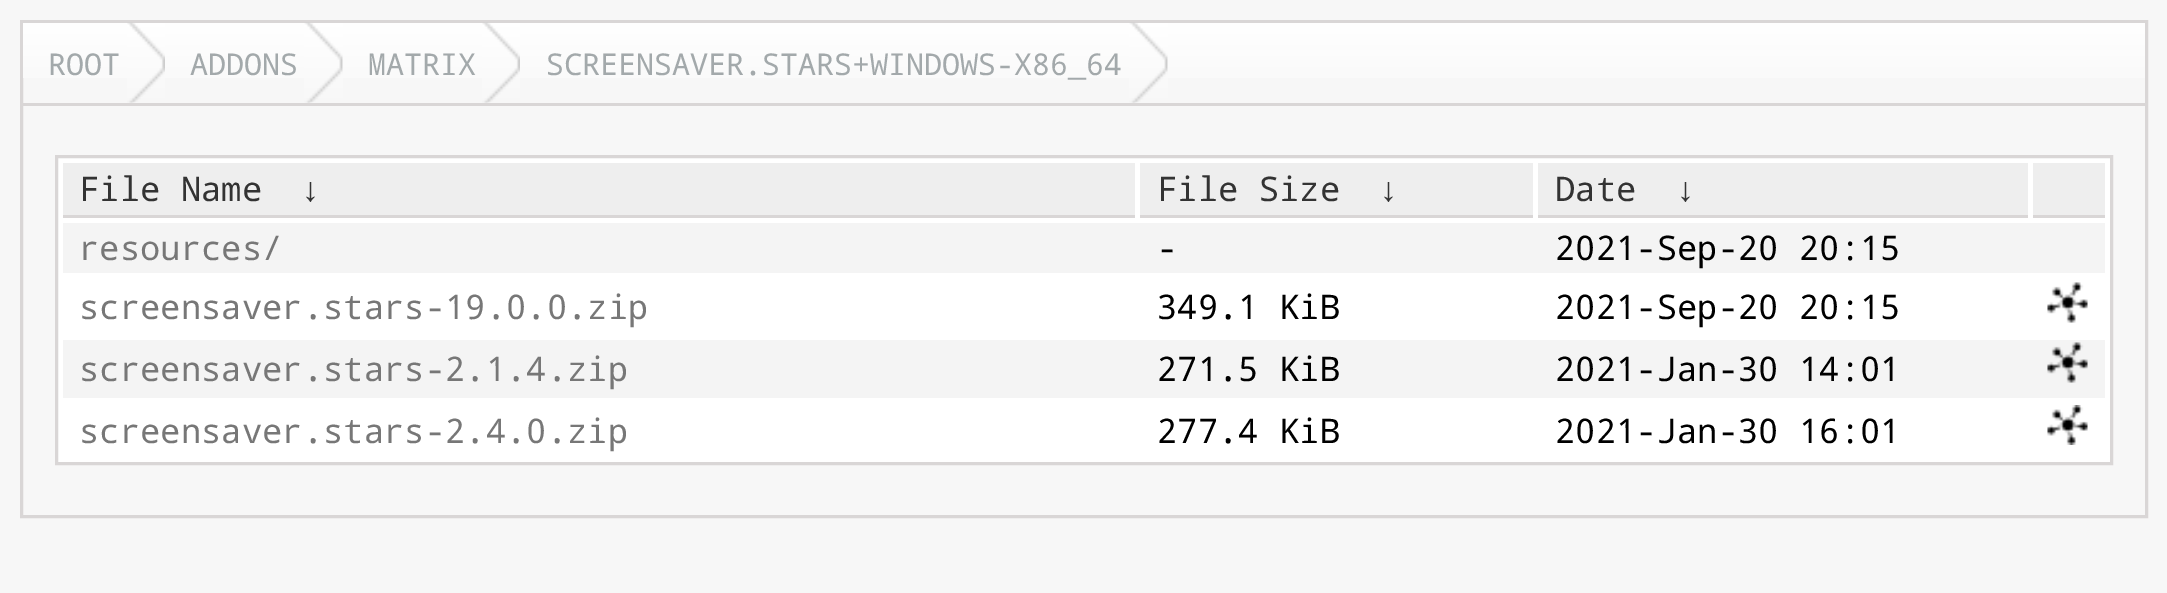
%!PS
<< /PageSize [2167 593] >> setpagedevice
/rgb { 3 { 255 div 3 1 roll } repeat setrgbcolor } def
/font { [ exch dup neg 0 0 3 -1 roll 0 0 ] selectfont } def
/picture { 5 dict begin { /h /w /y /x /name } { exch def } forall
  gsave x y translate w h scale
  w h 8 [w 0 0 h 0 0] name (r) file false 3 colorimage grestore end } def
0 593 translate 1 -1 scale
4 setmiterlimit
247 247 247 rgb
0 0 2167 593 rectfill
217 214 214 rgb
3 setlinewidth
21.5 21.5 2125 495 rectstroke
gsave 23 23 moveto 2145 23 lineto 2145 78 lineto 23 78 lineto closepath clip newpath
<< /ShadingType 2 /ColorSpace /DeviceRGB /Coords [1084 22 1084 103] /Extend [true true] /Function << /FunctionType 2 /Domain [0 1] /C0 [1 1 1] /C1 [0.969 0.969 0.969] /N 1 >> >> shfill grestore
23 103 2122 3 rectfill
(img/1.rgb) 127 22 38 81 picture
(img/2.rgb) 304 22 39 81 picture
(img/3.rgb) 482 22 38 81 picture
(img/2.rgb) 1129 22 39 81 picture
255 255 255 rgb
56.5 156.5 moveto 2111.5 156.5 lineto 2111.5 463.5 lineto 56.5 463.5 lineto closepath gsave fill grestore
217 214 214 rgb
stroke
[
  [63 163 1072 52 238 238 238]
  [63 215 1072 3 217 214 214]
  [1140 163 393 52 238 238 238]
  [1140 215 393 3 217 214 214]
  [1538 163 490 52 238 238 238]
  [1538 215 490 3 217 214 214]
  [2033 163 72 52 238 238 238]
  [2033 215 72 3 217 214 214]
  [63 223 2042 50 244 244 244]
] { aload pop rgb rectfill } forall
(img/4.rgb) 2047 282 41 41 picture
63 340 2042 58 rectfill
(img/5.rgb) 2047 342 41 41 picture
(img/6.rgb) 2047 405 41 40 picture
/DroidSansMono-Regular 30 font
163 169 171 rgb
[
  [(ROOT) 48 75]
  [(ADDONS) 190 75]
  [(MATRIX) 368 75]
  [(SCREENSAVER.STARS+WINDOWS-X86_64) 546 75]
] { aload pop moveto show } forall
/DroidSansMono-Regular 33.9 font
51 51 51 rgb
79 201 moveto (File Name) show
/LiberationSerif-Regular 33.9 font
302 201 moveto (↓) show
/DroidSansMono-Regular 33.9 font
1157 201 moveto (File Size) show
/LiberationSerif-Regular 33.9 font
1380 201 moveto (↓) show
/DroidSansMono-Regular 33.9 font
1555 201 moveto (Date) show
/LiberationSerif-Regular 33.9 font
1677 201 moveto (↓) show
/DroidSansMono-Regular 33.9 font
119 119 119 rgb
79 260 moveto (resources/) show
0 0 0 rgb
1157 260 moveto (-) show
1555 260 moveto (2021-Sep-20 20:15) show
119 119 119 rgb
79 319 moveto (screensaver.stars-19.0.0.zip) show
0 0 0 rgb
1157 319 moveto (349.1 KiB) show
1555 319 moveto (2021-Sep-20 20:15) show
119 119 119 rgb
79 381 moveto (screensaver.stars-2.1.4.zip) show
0 0 0 rgb
1157 381 moveto (271.5 KiB) show
1555 381 moveto (2021-Jan-30 14:01) show
119 119 119 rgb
79 443 moveto (screensaver.stars-2.4.0.zip) show
0 0 0 rgb
1157 443 moveto (277.4 KiB) show
1555 443 moveto (2021-Jan-30 16:01) show
showpage
